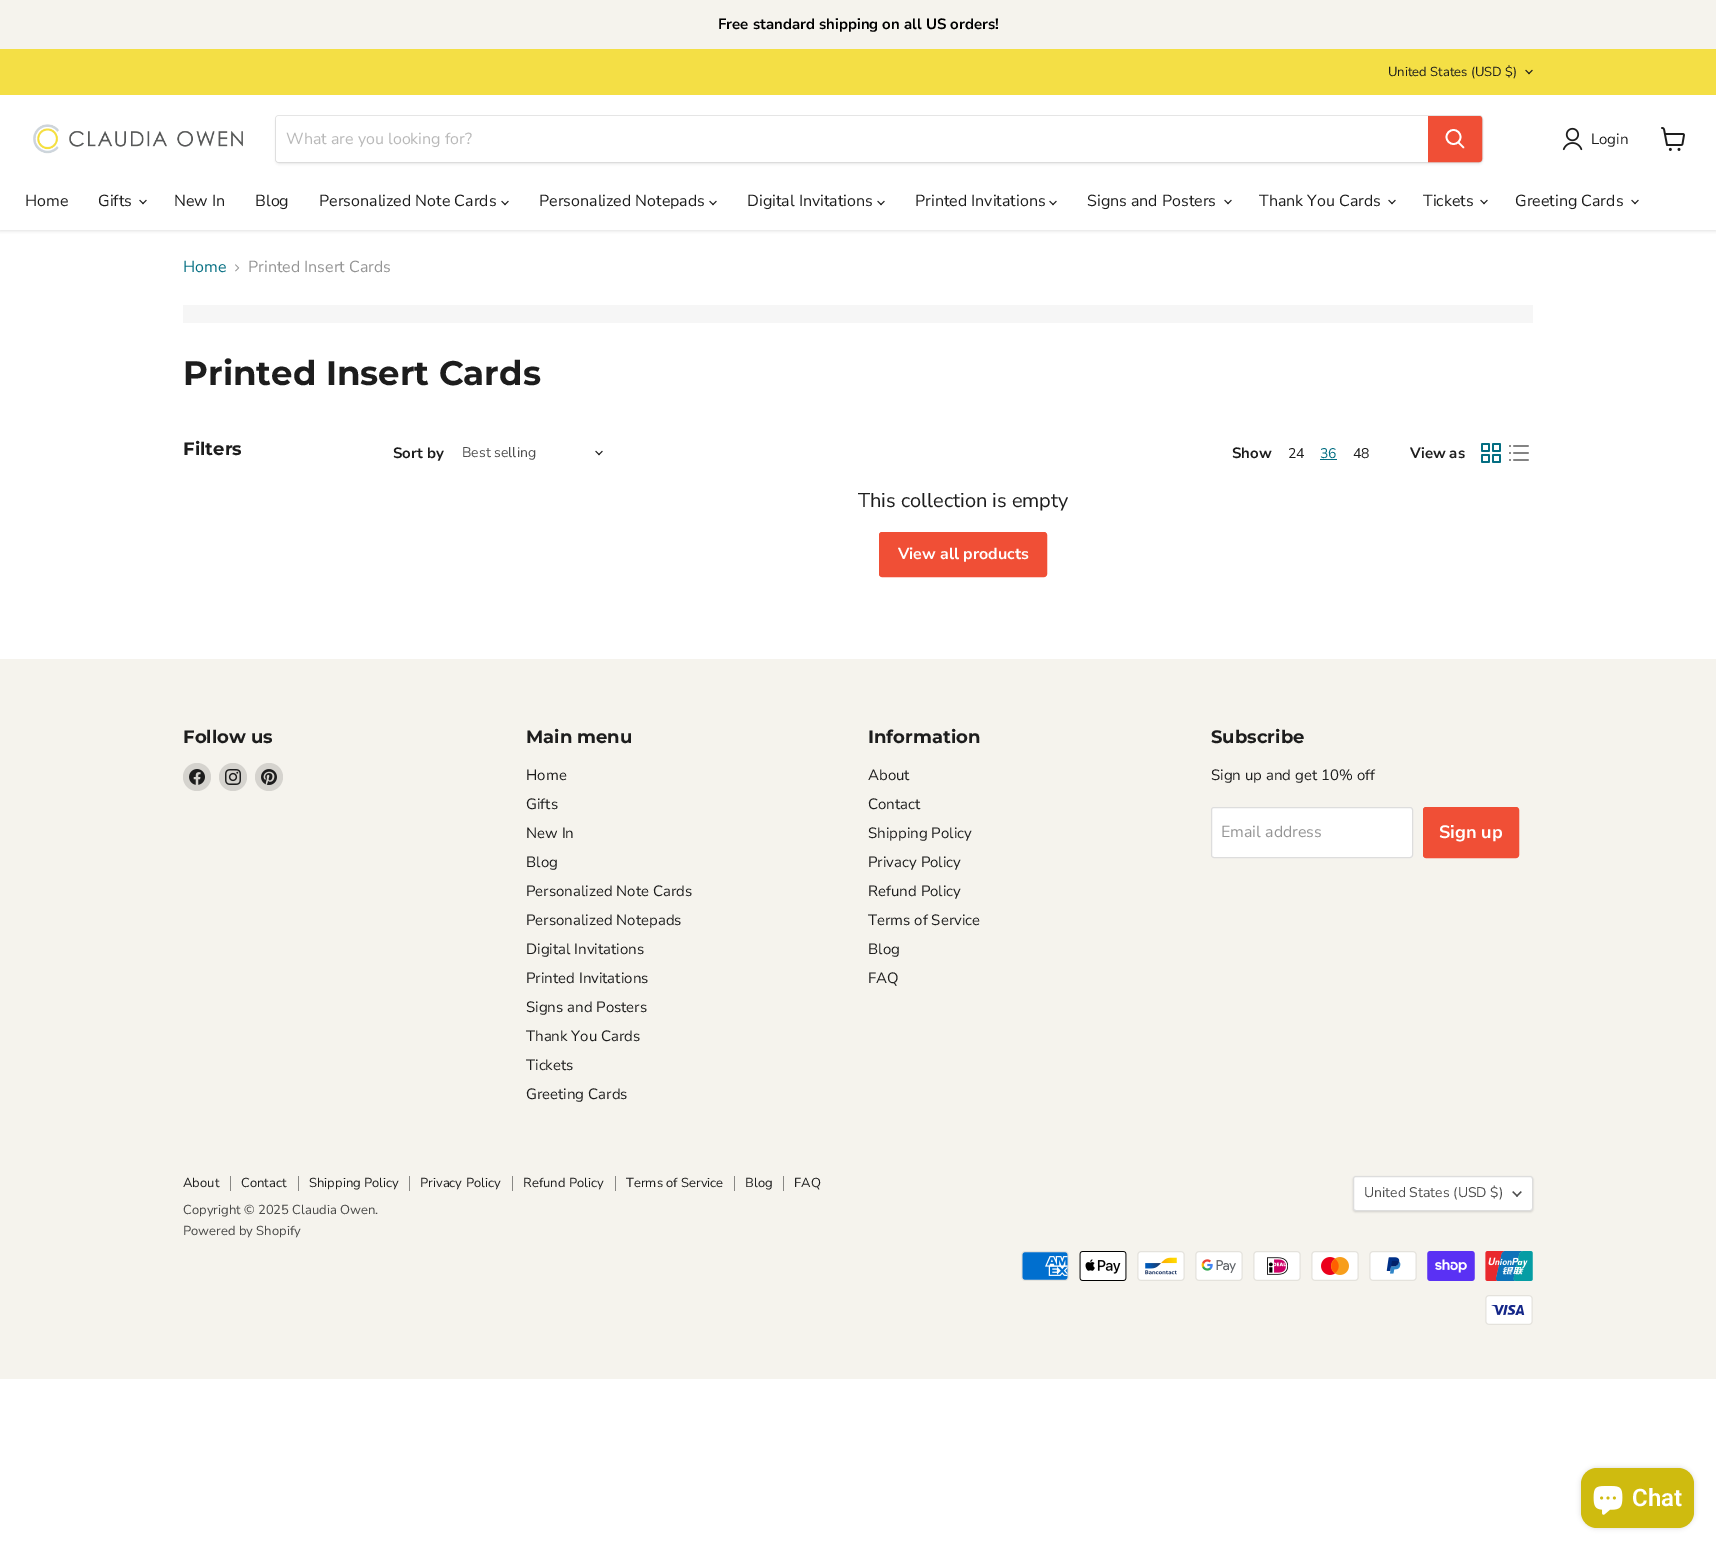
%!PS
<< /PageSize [1716 1549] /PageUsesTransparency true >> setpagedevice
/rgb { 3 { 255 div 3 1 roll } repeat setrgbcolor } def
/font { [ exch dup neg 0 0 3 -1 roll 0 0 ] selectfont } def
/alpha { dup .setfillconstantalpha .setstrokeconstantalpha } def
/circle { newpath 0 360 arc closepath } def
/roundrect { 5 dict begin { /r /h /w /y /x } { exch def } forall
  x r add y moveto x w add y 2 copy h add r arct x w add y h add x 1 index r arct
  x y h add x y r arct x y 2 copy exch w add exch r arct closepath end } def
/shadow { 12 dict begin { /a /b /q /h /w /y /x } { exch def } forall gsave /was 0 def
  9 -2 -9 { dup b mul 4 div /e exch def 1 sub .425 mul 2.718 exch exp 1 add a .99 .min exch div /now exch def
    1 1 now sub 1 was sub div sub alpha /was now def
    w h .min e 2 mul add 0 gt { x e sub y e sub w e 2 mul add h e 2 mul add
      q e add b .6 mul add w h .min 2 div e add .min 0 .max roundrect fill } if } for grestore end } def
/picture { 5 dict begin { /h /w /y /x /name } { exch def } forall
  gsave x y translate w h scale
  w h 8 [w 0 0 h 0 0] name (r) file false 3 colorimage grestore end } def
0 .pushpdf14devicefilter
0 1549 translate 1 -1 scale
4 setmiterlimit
255 255 255 rgb
0 0 1716 1549 rectfill
245 243 237 rgb
0 0 1716 49 rectfill
gsave
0 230 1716 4 rectclip
128 128 128 rgb
0 97 1716 134 0 2 0.25 shadow
grestore
244 223 69 rgb
0 49 1716 46 rectfill
255 255 255 rgb
0 95 1716 1 rectfill
(img/1.rgb) 1525 69 8 6 picture
(img/2.rgb) 33 124 210 30 picture
128 128 128 rgb
275 117 1208 48 4 1.5 0.11 shadow
0.2 alpha
275.5 115.5 1207 47 3.5 roundrect stroke
1 alpha
255 255 255 rgb
279 116 moveto 1428 116 lineto 1428 162 lineto 279 162 lineto 277.5 162 276 160.5 276 159 curveto 276 119 lineto 276 117.5 277.5 116 279 116 curveto closepath fill
240 79 54 rgb
1428.5 116.5 moveto 1479 116.5 lineto 1480.5 116.5 1481.5 117.5 1481.5 119 curveto 1481.5 159 lineto 1481.5 160.5 1480.5 161.5 1479 161.5 curveto 1428.5 161.5 lineto closepath gsave fill grestore
stroke
255 255 255 rgb
1.7 setlinewidth
1 setlinecap
1463.5 147.5 moveto 1458.5 142.5 lineto stroke
0 setlinecap
1453.5 137 7 circle stroke
(img/3.rgb) 1562 127 21 24 picture
(img/4.rgb) 1661 127 24 24 picture
(img/5.rgb) 139 199 8 6 picture
(img/5.rgb) 501 200 8 6 picture
(img/5.rgb) 709 200 8 6 picture
(img/5.rgb) 877 200 8 6 picture
(img/5.rgb) 1049 200 8 6 picture
(img/5.rgb) 1224 199 8 6 picture
(img/5.rgb) 1388 199 8 6 picture
(img/5.rgb) 1480 199 8 6 picture
(img/5.rgb) 1631 199 8 6 picture
(img/6.rgb) 235 264 5 8 picture
246 246 246 rgb
183 305 1350 18 rectfill
(img/5.rgb) 595 450 8 6 picture
4 110 130 rgb
1320 459 17 1 rectfill
(img/7.rgb) 1481 443 20 20 picture
(img/8.rgb) 1509 445 20 16 picture
240 79 54 rgb
879.5 532.5 167 44 2.5 roundrect gsave fill grestore
1 setlinewidth
stroke
245 243 237 rgb
0 659 1716 720 rectfill
213 211 206 rgb
197 777 14 circle fill
(img/9.rgb) 189 769 16 16 picture
233 777 14 circle fill
(img/10.rgb) 225 769 16 16 picture
269 777 14 circle fill
(img/11.rgb) 261 769 16 16 picture
255 255 255 rgb
1211.5 807.5 201 50 2.5 roundrect gsave fill grestore
221 221 221 rgb
stroke
240 79 54 rgb
1423.5 807.5 95 50 2.5 roundrect gsave fill grestore
stroke
[
  [230 1176 1 15 137 136 133]
  [298 1176 1 15 137 136 133]
  [409 1176 1 15 137 136 133]
  [512 1176 1 15 137 136 133]
  [615 1176 1 15 137 136 133]
  [734 1176 1 15 137 136 133]
  [783 1176 1 15 137 136 133]
] { aload pop rgb rectfill } forall
0 0 0 rgb
1353 1177 180 35 3 1 0.15 shadow
255 255 255 rgb
1353.5 1176.5 179 34 2.5 roundrect gsave fill grestore
221 221 221 rgb
stroke
(img/12.rgb) 1512 1191 10 6 picture
(img/13.rgb) 1021 1251 48 30 picture
(img/14.rgb) 1079 1251 48 30 picture
(img/15.rgb) 1137 1251 48 30 picture
(img/16.rgb) 1195 1251 48 30 picture
(img/17.rgb) 1253 1251 48 30 picture
(img/18.rgb) 1311 1251 48 30 picture
(img/19.rgb) 1369 1251 48 30 picture
(img/20.rgb) 1427 1251 48 30 picture
(img/21.rgb) 1485 1251 48 30 picture
(img/22.rgb) 1485 1295 48 30 picture
0 0 0 rgb
1581 1468 113 60 16 2.5 0.15 shadow
207 187 15 rgb
1581 1468 113 60 16 roundrect fill
(img/23.rgb) 1593 1486 30 29 picture
/NunitoSans-Bold 15 font
0 0 0 rgb
718 29 moveto (Free standard shipping on all US orders!) show
/NunitoSans-Regular 13 font
29 29 29 rgb
1388 76 moveto (United States \(USD $\)) show
/NunitoSans-Regular 16 font
184 184 184 rgb
286 144 moveto (What are you looking for?) show
/NunitoSans-Regular 15 font
29 29 29 rgb
1591 144 moveto (Login) show
/NunitoSans-Regular 16 font
[
  [(Home) 25 206]
  [(Gifts) 98 206]
  [(New In) 174 206]
  [(Blog) 255 206]
  [(Personalized Note Cards) 319 206]
  [(Personalized Notepads) 539 206]
  [(Digital Invitations) 747 206]
  [(Printed Invitations) 915 206]
  [(Signs and Posters) 1087 206]
  [(Thank You Cards) 1259 206]
  [(Tickets) 1423 206]
  [(Greeting Cards) 1515 206]
] { aload pop moveto show } forall
4 110 130 rgb
183 272 moveto (Home) show
148 148 148 rgb
248 272 moveto (Printed Insert Cards) show
/Montserrat-Bold 34 font
29 29 29 rgb
183 385 moveto (Printed Insert Cards) show
/Montserrat-Bold 18 font
183 455 moveto (Filters) show
/NunitoSans-Bold 15 font
393 458 moveto (Sort by) show
/NunitoSans-Regular 14 font
77 77 77 rgb
462 457 moveto (Best selling) show
/NunitoSans-Bold 15 font
29 29 29 rgb
1232 458 moveto (Show) show
/NunitoSans-Regular 14 font
1288 458 moveto (24) show
4 110 130 rgb
1320 458 moveto (36) show
29 29 29 rgb
1353 458 moveto (48) show
/NunitoSans-Bold 15 font
1410 458 moveto (View as) show
/NunitoSans-Regular 20 font
858 507 moveto (This collection is empty) show
/NunitoSans-Bold 16 font
255 255 255 rgb
898 559 moveto (View all products) show
/Montserrat-Bold 18 font
29 29 29 rgb
183 743 moveto (Follow us) show
526 743 moveto (Main menu) show
/NunitoSans-Regular 15 font
[
  [(Home) 526 780]
  [(Gifts) 526 809]
  [(New In) 526 838]
  [(Blog) 526 867]
  [(Personalized Note Cards) 526 896]
  [(Personalized Notepads) 526 925]
  [(Digital Invitations) 526 954]
  [(Printed Invitations) 526 983]
  [(Signs and Posters) 526 1012]
  [(Thank You Cards) 526 1041]
  [(Tickets) 526 1070]
  [(Greeting Cards) 526 1099]
] { aload pop moveto show } forall
/Montserrat-Bold 18 font
868 743 moveto (Information) show
/NunitoSans-Regular 15 font
[
  [(About) 868 780]
  [(Contact) 868 809]
  [(Shipping Policy) 868 838]
  [(Privacy Policy) 868 867]
  [(Refund Policy) 868 896]
  [(Terms of Service) 868 925]
  [(Blog) 868 954]
  [(FAQ) 868 983]
] { aload pop moveto show } forall
/Montserrat-Bold 18 font
1211 743 moveto (Subscribe) show
/NunitoSans-Regular 15 font
1211 780 moveto (Sign up and get 10% off) show
/NunitoSans-Regular 16 font
148 148 148 rgb
1221 837 moveto (Email address) show
/NunitoSans-Bold 18 font
255 255 255 rgb
1439 838 moveto (Sign up) show
/NunitoSans-Regular 13 font
29 29 29 rgb
[
  [(About) 183 1187]
  [(Contact) 241 1187]
  [(Shipping Policy) 309 1187]
  [(Privacy Policy) 420 1187]
  [(Refund Policy) 523 1187]
  [(Terms of Service) 626 1187]
  [(Blog) 745 1187]
  [(FAQ) 794 1187]
] { aload pop moveto show } forall
72 72 71 rgb
183 1214 moveto (Copyright © 2025 Claudia Owen.) show
183 1235 moveto (Powered by Shopify) show
/NunitoSans-Regular 14 font
77 77 77 rgb
1364 1197 moveto (United States \(USD $\)) show
/Roboto-SemiBold 24 font
255 255 255 rgb
1632 1506 moveto (Chat) show
.poppdf14devicefilter showpage
